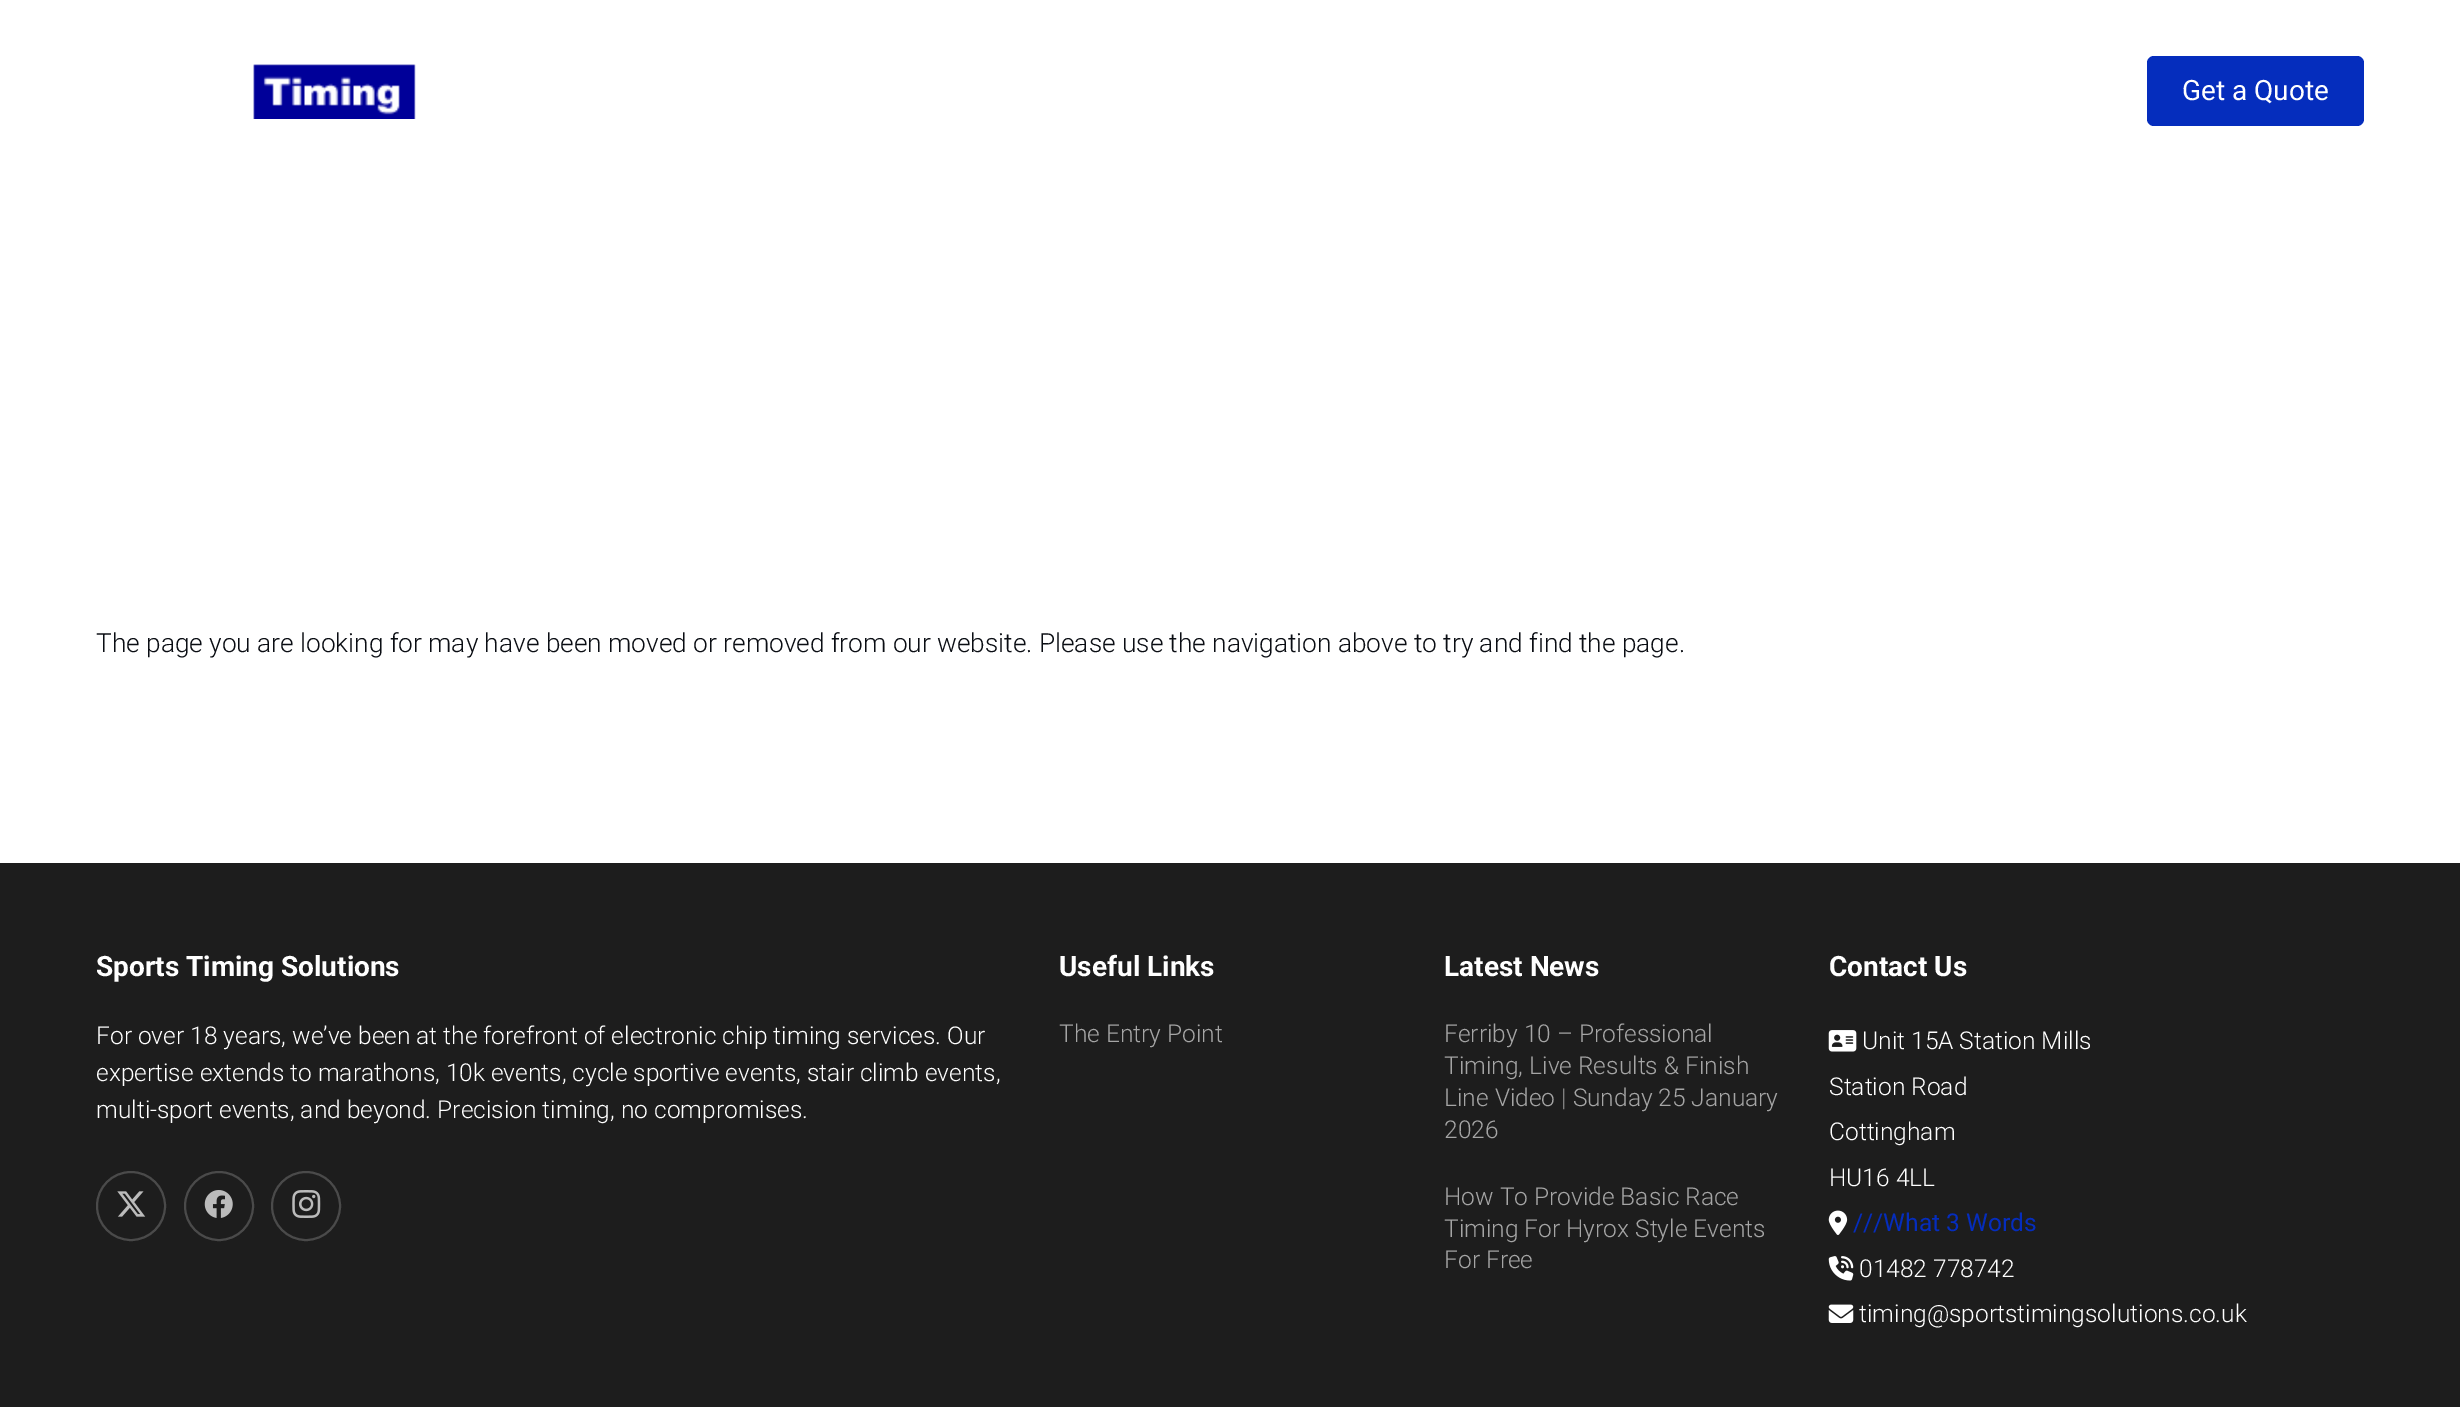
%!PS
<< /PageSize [2460 1407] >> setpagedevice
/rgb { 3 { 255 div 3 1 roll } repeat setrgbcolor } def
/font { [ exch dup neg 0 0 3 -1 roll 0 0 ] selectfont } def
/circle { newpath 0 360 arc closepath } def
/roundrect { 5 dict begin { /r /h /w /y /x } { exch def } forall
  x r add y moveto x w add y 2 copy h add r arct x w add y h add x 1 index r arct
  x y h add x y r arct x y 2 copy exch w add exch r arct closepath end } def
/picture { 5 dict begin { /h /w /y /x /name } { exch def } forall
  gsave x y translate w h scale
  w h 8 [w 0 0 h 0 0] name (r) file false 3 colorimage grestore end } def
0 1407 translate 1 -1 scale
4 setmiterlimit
255 255 255 rgb
0 0 2460 1407 rectfill
(img/1.rgb) 253 64 163 55 picture
5 45 189 rgb
2147 56 217 70 7 roundrect fill
29 29 29 rgb
0 863 2460 544 rectfill
74 74 74 rgb
2 setlinewidth
131 1206 34 circle stroke
(img/2.rgb) 117 1191 29 26 picture
219 1206 34 circle stroke
(img/3.rgb) 204 1190 29 28 picture
306 1206 34 circle stroke
(img/4.rgb) 292 1190 29 28 picture
(img/5.rgb) 1828 1030 29 22 picture
(img/6.rgb) 1828 1210 20 25 picture
(img/7.rgb) 1828 1256 26 25 picture
(img/8.rgb) 1828 1304 26 19 picture
/Roboto-Regular 28 font
255 255 255 rgb
2182 100 moveto (Get a Quote) show
/Roboto-Light 26.25 font
10 13 19 rgb
96 652 moveto (The page you are looking for may have been moved or removed from our website. Please use the navigation above to try and find the page.) show
/Roboto-Bold 28 font
255 255 255 rgb
96 976 moveto (Sports Timing Solutions) show
/Roboto-Light 24.5 font
[
  [(For over 18 years, we’ve been at the forefront of electronic chip timing services. Our) 96 1044]
  [(expertise extends to marathons, 10k events, cycle sportive events, stair climb events,) 96 1081]
  [(multi-sport events, and beyond. Precision timing, no compromises.) 96 1118]
] { aload pop moveto show } forall
/Roboto-Bold 28 font
1059 976 moveto (Useful Links) show
/Roboto-Light 24.5 font
165 165 165 rgb
1059 1042 moveto (The Entry Point) show
/Roboto-Bold 28 font
255 255 255 rgb
1444 976 moveto (Latest News) show
/Roboto-Light 24.5 font
165 165 165 rgb
[
  [(Ferriby 10 – Professional) 1444 1042]
  [(Timing, Live Results & Finish) 1444 1074]
  [(Line Video | Sunday 25 January) 1444 1106]
  [(2026) 1444 1138]
  [(How To Provide Basic Race) 1444 1205]
  [(Timing For Hyrox Style Events) 1444 1237]
  [(For Free) 1444 1268]
] { aload pop moveto show } forall
/Roboto-Bold 28 font
255 255 255 rgb
1829 976 moveto (Contact Us) show
/Roboto-Light 24.5 font
[
  [(Unit 15A Station Mills) 1862 1049]
  [(Station Road) 1829 1095]
  [(Cottingham) 1829 1140]
  [(HU16 4LL) 1829 1186]
] { aload pop moveto show } forall
/Roboto-Regular 24.5 font
5 45 189 rgb
1853 1231 moveto (///What 3 Words) show
/Roboto-Light 24.5 font
255 255 255 rgb
1859 1277 moveto (01482 778742) show
1859 1322 moveto (timing@sportstimingsolutions.co.uk) show
showpage
